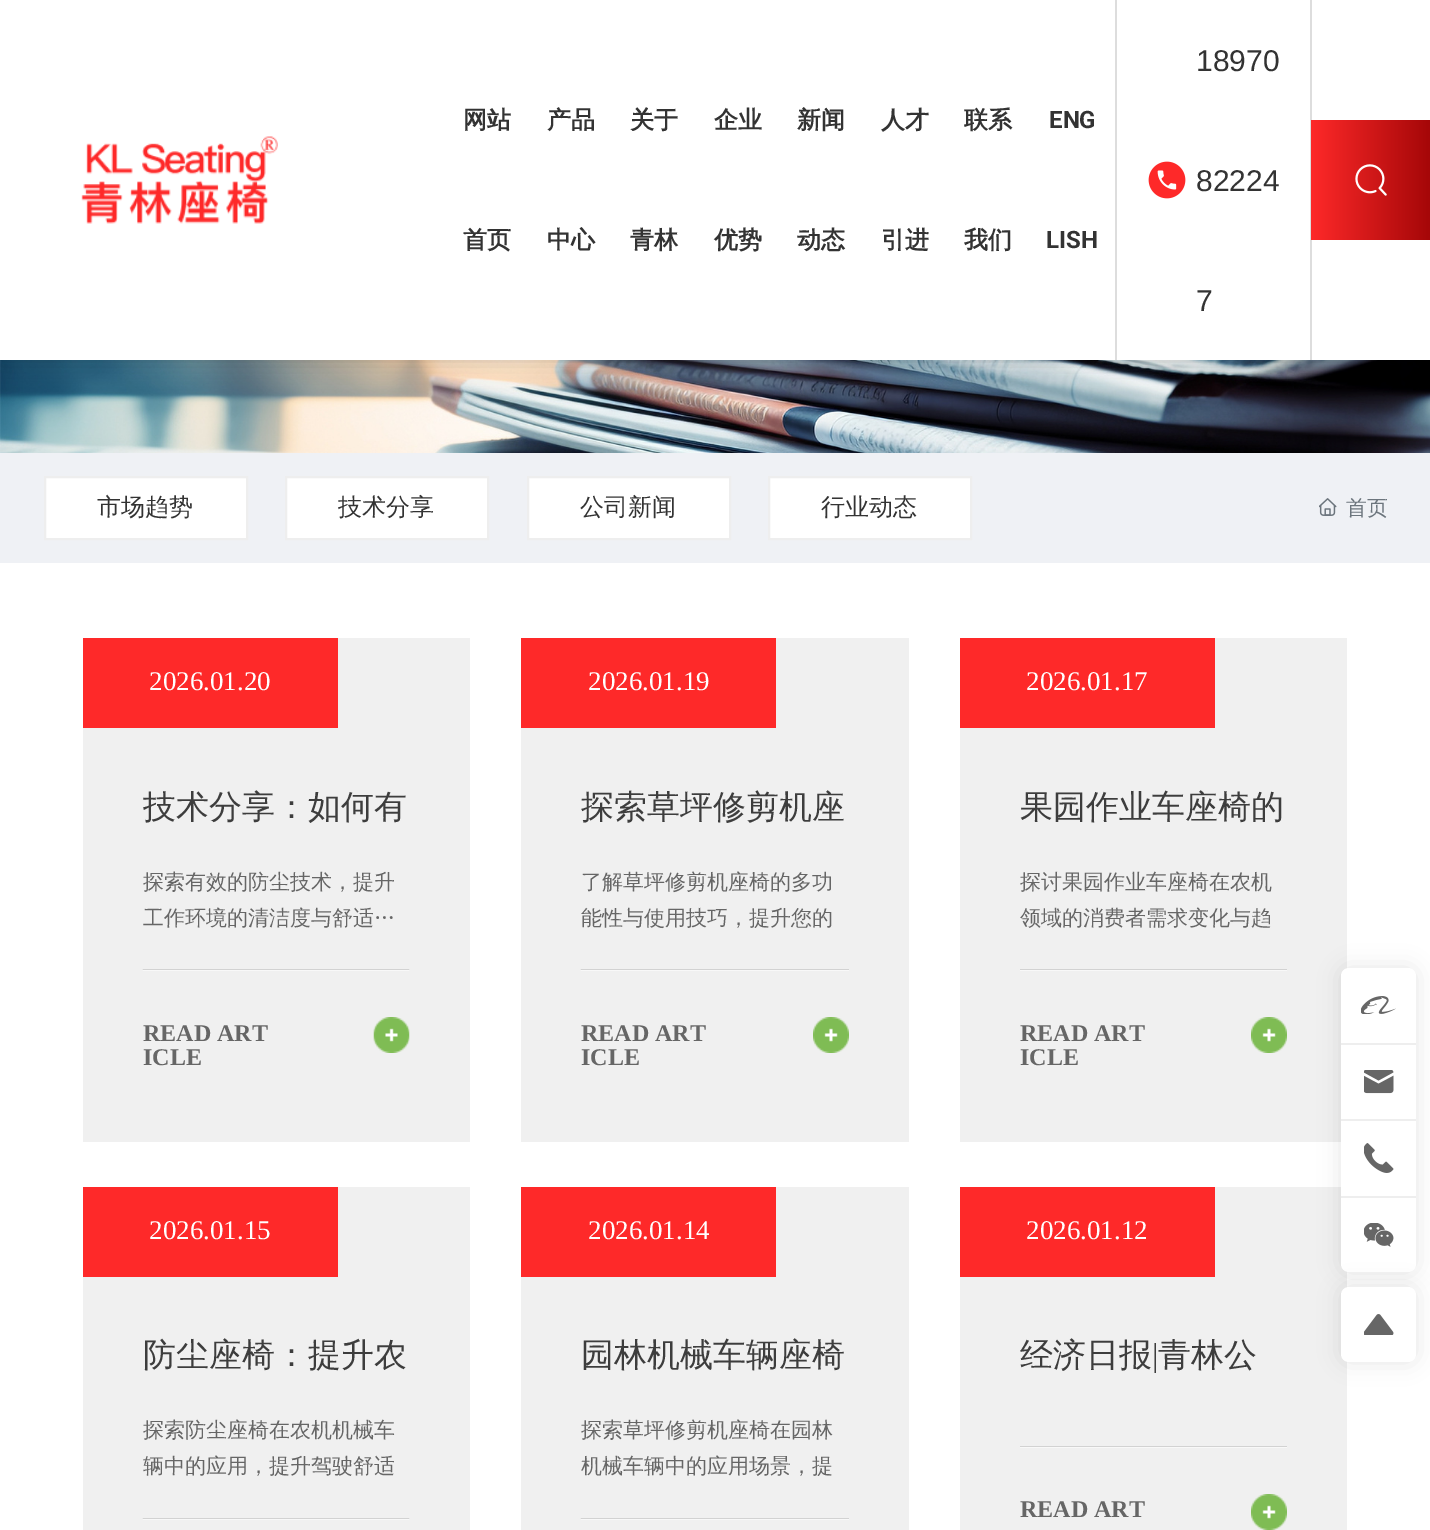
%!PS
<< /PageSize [1430 1530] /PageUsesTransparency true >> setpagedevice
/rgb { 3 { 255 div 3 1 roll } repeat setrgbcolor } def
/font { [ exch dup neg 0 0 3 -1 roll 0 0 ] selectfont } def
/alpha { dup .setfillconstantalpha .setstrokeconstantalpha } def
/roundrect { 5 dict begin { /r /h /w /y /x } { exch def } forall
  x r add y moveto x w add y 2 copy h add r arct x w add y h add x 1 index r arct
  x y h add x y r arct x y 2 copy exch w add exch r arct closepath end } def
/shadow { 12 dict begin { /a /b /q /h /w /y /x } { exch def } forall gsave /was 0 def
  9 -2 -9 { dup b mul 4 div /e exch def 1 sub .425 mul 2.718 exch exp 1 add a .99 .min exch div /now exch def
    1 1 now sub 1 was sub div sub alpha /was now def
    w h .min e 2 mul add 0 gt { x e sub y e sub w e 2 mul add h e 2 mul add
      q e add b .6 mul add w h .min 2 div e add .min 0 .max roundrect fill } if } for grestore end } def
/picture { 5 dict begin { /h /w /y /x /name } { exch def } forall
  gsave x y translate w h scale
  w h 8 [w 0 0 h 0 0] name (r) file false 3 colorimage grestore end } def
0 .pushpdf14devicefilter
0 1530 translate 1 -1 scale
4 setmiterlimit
255 255 255 rgb
0 0 1430 1530 rectfill
(img/4.rgb) 0 360 1430 93 picture
0 0 0 rgb
0 0 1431 360 0 11 0.2 shadow
255 255 255 rgb
0 0 1430 360 rectfill
(img/1.rgb) 81 136 197 88 picture
221 221 221 rgb
1310 0 2 360 rectfill
1115 0 2 360 rectfill
(img/2.rgb) 1148 161 38 38 picture
gsave 1311 120 moveto 1430 120 lineto 1430 240 lineto 1311 240 lineto closepath clip newpath
<< /ShadingType 2 /ColorSpace /DeviceRGB /Coords [1311 180 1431 180] /Extend [true true] /Function << /FunctionType 2 /Domain [0 1] /C0 [0.996 0.161 0.161] /C1 [0.643 0.027 0.031] /N 1 >> >> shfill grestore
(img/3.rgb) 1355 164 32 32 picture
239 241 245 rgb
0 453 1430 110 rectfill
255 255 255 rgb
45 477 moveto 247 477 lineto 247 539 lineto 45 539 lineto closepath gsave fill grestore
238 238 238 rgb
2 setlinewidth
stroke
255 255 255 rgb
286 477 moveto 488 477 lineto 488 539 lineto 286 539 lineto closepath gsave fill grestore
238 238 238 rgb
stroke
255 255 255 rgb
528 477 moveto 730 477 lineto 730 539 lineto 528 539 lineto closepath gsave fill grestore
238 238 238 rgb
stroke
255 255 255 rgb
769 477 moveto 971 477 lineto 971 539 lineto 769 539 lineto closepath gsave fill grestore
238 238 238 rgb
stroke
(img/5.rgb) 1319 498 18 18 picture
240 240 240 rgb
83 638 387 504 rectfill
254 41 41 rgb
83 638 255 90 rectfill
(img/6.rgb) 142 969 268 2 picture
(img/7.rgb) 373 1017 37 36 picture
240 240 240 rgb
521 638 388 504 rectfill
254 41 41 rgb
521 638 255 90 rectfill
(img/8.rgb) 580 969 269 2 picture
(img/9.rgb) 813 1017 36 36 picture
240 240 240 rgb
960 638 387 504 rectfill
254 41 41 rgb
960 638 255 90 rectfill
(img/10.rgb) 1020 969 267 2 picture
(img/9.rgb) 1251 1017 36 36 picture
240 240 240 rgb
83 1187 387 343 rectfill
254 41 41 rgb
83 1187 255 90 rectfill
(img/6.rgb) 142 1518 268 2 picture
240 240 240 rgb
521 1187 388 343 rectfill
254 41 41 rgb
521 1187 255 90 rectfill
(img/8.rgb) 580 1518 269 2 picture
240 240 240 rgb
960 1187 387 343 rectfill
254 41 41 rgb
960 1187 255 90 rectfill
(img/10.rgb) 1020 1446 267 2 picture
(img/9.rgb) 1251 1494 36 36 picture
0 0 0 rgb
1341 968 75 304 8 11 0.1 shadow
255 255 255 rgb
1341 968 75 304 8 roundrect fill
238 238 238 rgb
1341 1043 75 2 rectfill
(img/11.rgb) 1361 996 35 18 picture
1341 1119 75 2 rectfill
(img/12.rgb) 1364 1070 30 24 picture
1341 1196 75 2 rectfill
(img/13.rgb) 1364 1143 30 30 picture
(img/14.rgb) 1364 1223 30 24 picture
0 0 0 rgb
1341 1287 75 75 8 11 0.1 shadow
255 255 255 rgb
1341 1287 75 75 8 roundrect fill
(img/15.rgb) 1364 1314 30 21 picture
/WenQuanYiZenHei-Bold 24 font
51 51 51 rgb
[
  [(网站) 463 128]
  [(首页) 463 248]
  [(产品) 547 128]
  [(中心) 547 248]
  [(关于) 630 128]
  [(青林) 630 248]
  [(企业) 714 128]
  [(优势) 714 248]
  [(新闻) 797 128]
  [(动态) 797 248]
  [(人才) 881 128]
  [(引进) 881 248]
  [(联系) 964 128]
  [(我们) 964 248]
] { aload pop moveto show } forall
/Roboto-Bold 24 font
1049 128 moveto (ENG) show
1046 248 moveto (LISH) show
/LiberationSans-Regular 30 font
[
  [(18970) 1196 71]
  [(82224) 1196 191]
  [(7) 1196 311]
] { aload pop moveto show } forall
/WenQuanYiZenHei-Medium 24 font
[
  [(市场趋势) 97 515]
  [(技术分享) 338 515]
  [(公司新闻) 580 515]
  [(行业动态) 821 515]
] { aload pop moveto show } forall
/WenQuanYiZenHei-Medium 21 font
108 117 125 rgb
1346 515 moveto (首页) show
/LiberationSerif-Regular 27 font
255 255 255 rgb
149 690 moveto (2026.01.20) show
gsave
143 788 267 40 rectclip
/WenQuanYiZenHei-Medium 33 font
61 61 61 rgb
143 818 moveto (技术分享：如何有) show
grestore
/WenQuanYiZenHei-Medium 21 font
102 102 102 rgb
143 889 moveto (探索有效的防尘技术，提升) show
143 925 moveto (工作环境的清洁度与舒适…) show
/LiberationSerif-Bold 24 font
143 1041 moveto (READ ART) show
143 1065 moveto (ICLE) show
/LiberationSerif-Regular 27 font
255 255 255 rgb
588 690 moveto (2026.01.19) show
/WenQuanYiZenHei-Medium 33 font
61 61 61 rgb
581 818 moveto (探索草坪修剪机座) show
/WenQuanYiZenHei-Medium 21 font
102 102 102 rgb
581 889 moveto (了解草坪修剪机座椅的多功) show
581 925 moveto (能性与使用技巧，提升您的) show
/LiberationSerif-Bold 24 font
581 1041 moveto (READ ART) show
581 1065 moveto (ICLE) show
/LiberationSerif-Regular 27 font
255 255 255 rgb
1026 690 moveto (2026.01.17) show
/WenQuanYiZenHei-Medium 33 font
61 61 61 rgb
1020 818 moveto (果园作业车座椅的) show
/WenQuanYiZenHei-Medium 21 font
102 102 102 rgb
1020 889 moveto (探讨果园作业车座椅在农机) show
1020 925 moveto (领域的消费者需求变化与趋) show
/LiberationSerif-Bold 24 font
1020 1041 moveto (READ ART) show
1020 1065 moveto (ICLE) show
/LiberationSerif-Regular 27 font
255 255 255 rgb
149 1239 moveto (2026.01.15) show
/WenQuanYiZenHei-Medium 33 font
61 61 61 rgb
143 1366 moveto (防尘座椅：提升农) show
/WenQuanYiZenHei-Medium 21 font
102 102 102 rgb
143 1437 moveto (探索防尘座椅在农机机械车) show
gsave
143 1413 267 72 rectclip
143 1473 moveto (辆中的应用，提升驾驶舒适) show
grestore
/LiberationSerif-Regular 27 font
255 255 255 rgb
588 1239 moveto (2026.01.14) show
/WenQuanYiZenHei-Medium 33 font
61 61 61 rgb
581 1366 moveto (园林机械车辆座椅) show
/WenQuanYiZenHei-Medium 21 font
102 102 102 rgb
581 1437 moveto (探索草坪修剪机座椅在园林) show
581 1473 moveto (机械车辆中的应用场景，提) show
/LiberationSerif-Regular 27 font
255 255 255 rgb
1026 1239 moveto (2026.01.12) show
/WenQuanYiZenHei-Medium 33 font
61 61 61 rgb
1020 1366 moveto (经济日报) show
/LiberationSerif-Regular 33 font
1152 1366 moveto (|) show
/WenQuanYiZenHei-Medium 33 font
1158 1366 moveto (青林公) show
/LiberationSerif-Bold 24 font
102 102 102 rgb
1020 1517 moveto (READ ART) show
.poppdf14devicefilter showpage
